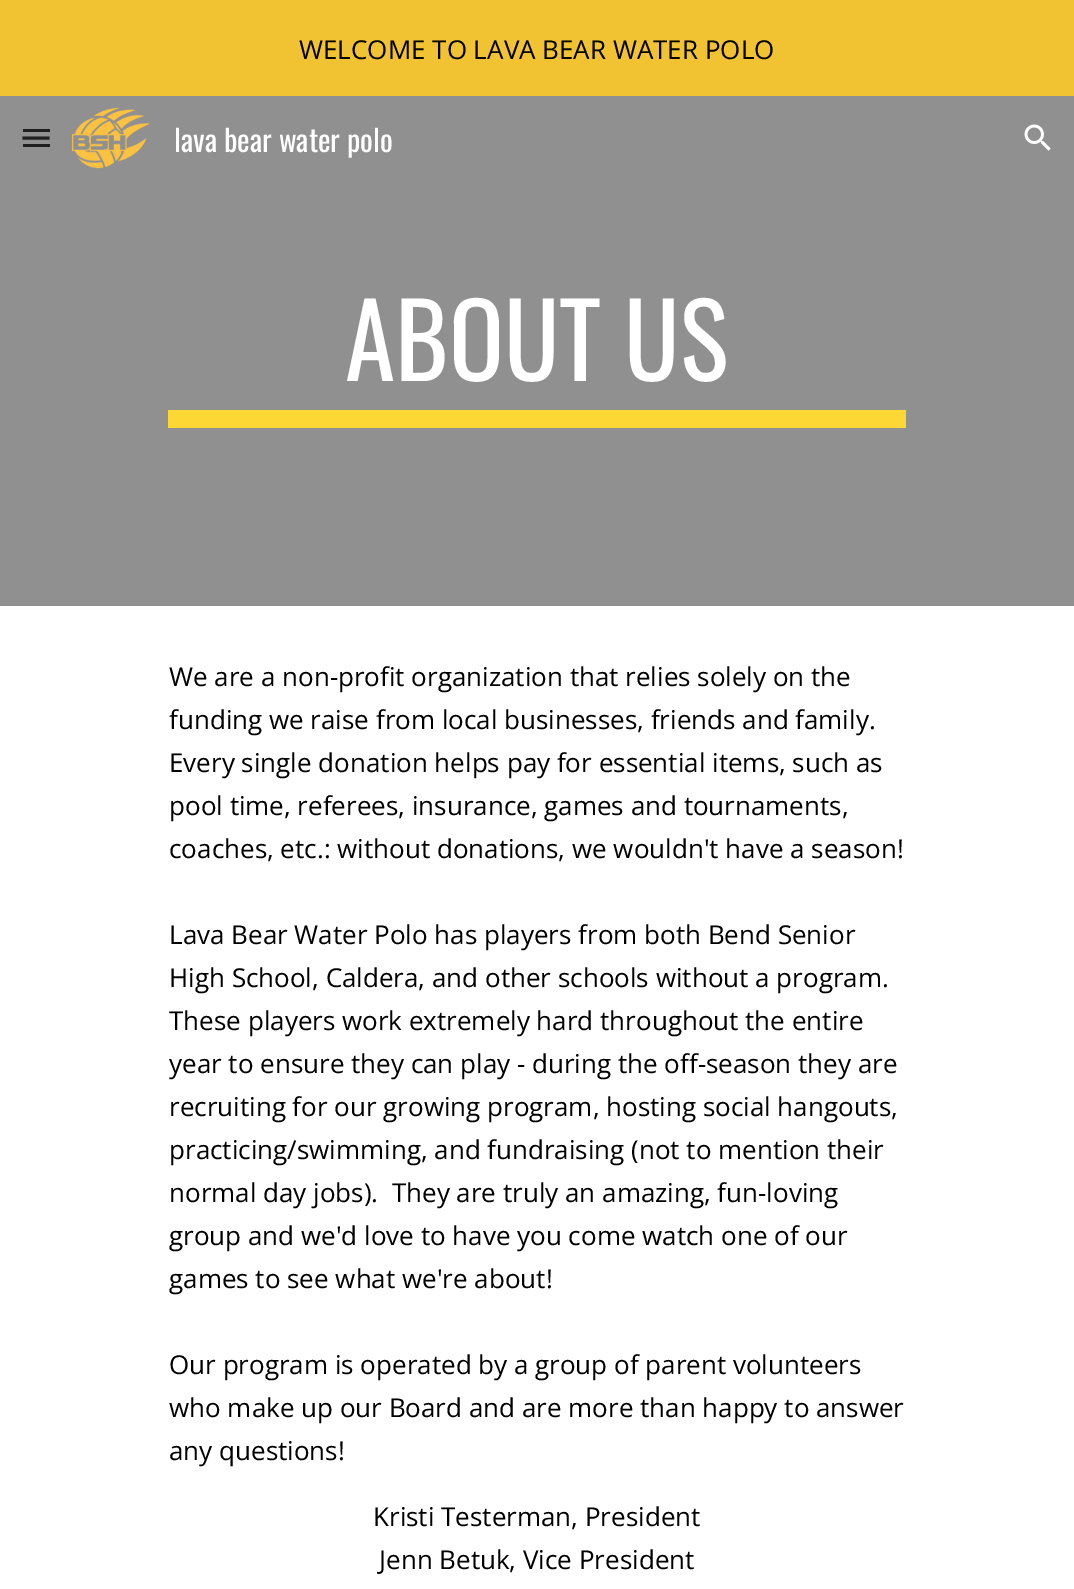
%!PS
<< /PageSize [1074 1589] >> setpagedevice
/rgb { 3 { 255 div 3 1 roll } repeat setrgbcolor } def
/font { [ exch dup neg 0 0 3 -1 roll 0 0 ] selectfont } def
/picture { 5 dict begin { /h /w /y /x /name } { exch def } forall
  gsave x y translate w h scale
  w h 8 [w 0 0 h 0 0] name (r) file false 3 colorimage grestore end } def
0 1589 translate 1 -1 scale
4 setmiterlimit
255 255 255 rgb
0 0 1074 1589 rectfill
[
  [0 0 1074 96 241 194 50]
  [0 96 1074 510 144 144 144]
  [23 129 27 3 31 31 31]
] { aload pop rgb rectfill } forall
3 setlinewidth
22.5 138 moveto 49.5 138 lineto stroke
23 144 27 3 rectfill
(img/1.rgb) 71 107 79 62 picture
(img/2.rgb) 1024 124 27 27 picture
253 216 53 rgb
168 410 738 18 rectfill
/OpenSans-Regular 26 font
0 0 0 rgb
299 59 moveto (WELCOME TO LAVA BEAR WATER POLO) show
/Oswald-Regular 30 font
255 255 255 rgb
174 152 moveto (lava bear water polo) show
/Oswald-Regular 102 font
345 381 moveto (ABOUT US) show
/OpenSans-Regular 26 font
0 0 0 rgb
[
  [(We are a non-profit organization that relies solely on the) 169 686]
  [(funding we raise from local businesses, friends and family.) 169 729]
  [(Every single donation helps pay for essential items, such as) 169 772]
  [(pool time, referees, insurance, games and tournaments,) 169 815]
  [(coaches, etc.: without donations, we wouldn't have a season!) 169 858]
  [(Lava Bear Water Polo has players from both Bend Senior) 169 944]
  [(High School, Caldera, and other schools without a program.) 169 987]
  [(These players work extremely hard throughout the entire) 169 1030]
  [(year to ensure they can play - during the off-season they are) 169 1073]
  [(recruiting for our growing program, hosting social hangouts,) 169 1116]
  [(practicing/swimming, and fundraising \(not to mention their) 169 1159]
  [(normal day jobs\).  They are truly an amazing, fun-loving) 169 1202]
  [(group and we'd love to have you come watch one of our) 169 1245]
  [(games to see what we're about!) 169 1288]
  [(Our program is operated by a group of parent volunteers) 169 1374]
  [(who make up our Board and are more than happy to answer) 169 1417]
  [(any questions!) 169 1460]
  [(Kristi Testerman, President) 373 1526]
  [(Jenn Betuk, Vice President) 379 1569]
] { aload pop moveto show } forall
showpage
